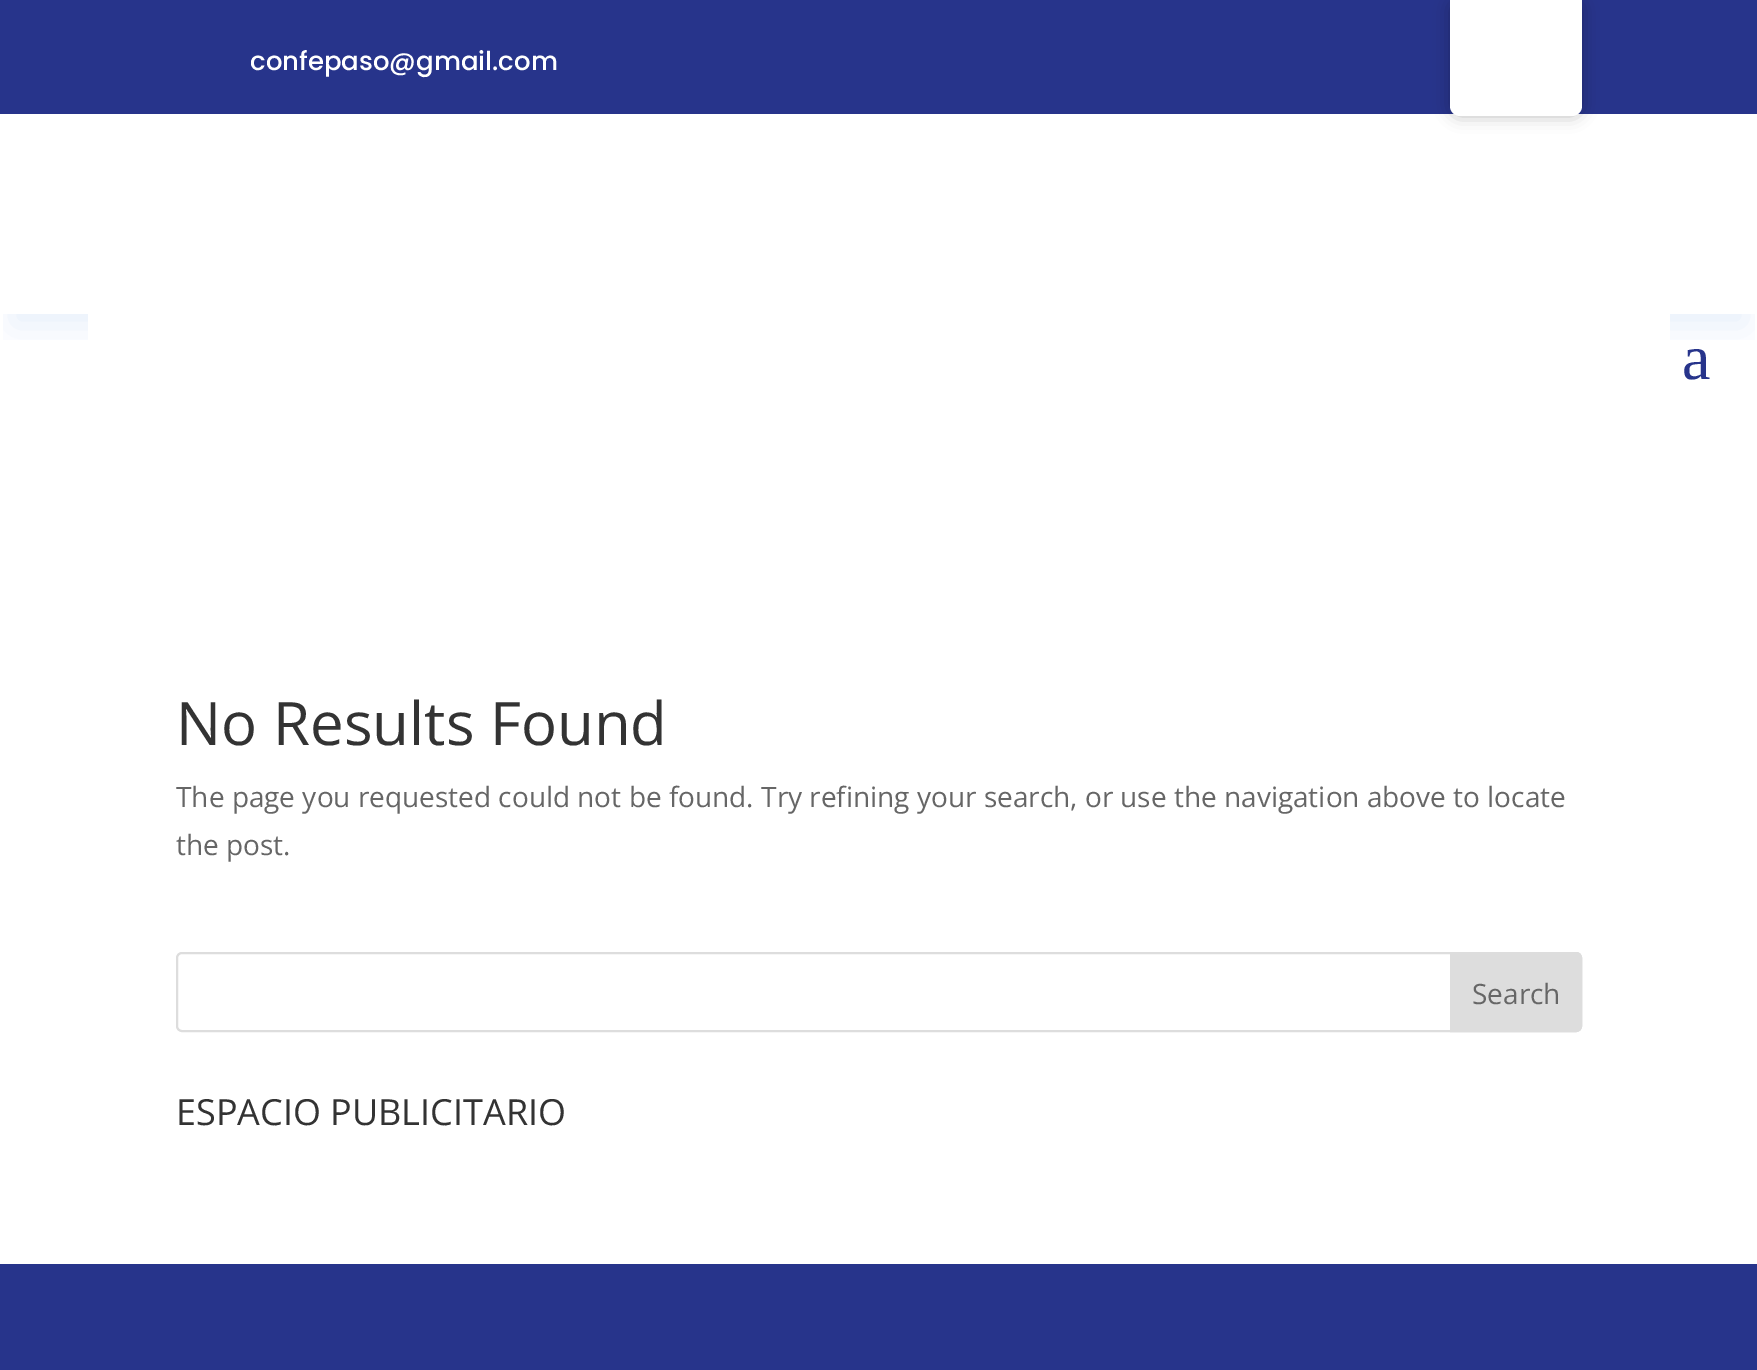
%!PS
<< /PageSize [1757 1370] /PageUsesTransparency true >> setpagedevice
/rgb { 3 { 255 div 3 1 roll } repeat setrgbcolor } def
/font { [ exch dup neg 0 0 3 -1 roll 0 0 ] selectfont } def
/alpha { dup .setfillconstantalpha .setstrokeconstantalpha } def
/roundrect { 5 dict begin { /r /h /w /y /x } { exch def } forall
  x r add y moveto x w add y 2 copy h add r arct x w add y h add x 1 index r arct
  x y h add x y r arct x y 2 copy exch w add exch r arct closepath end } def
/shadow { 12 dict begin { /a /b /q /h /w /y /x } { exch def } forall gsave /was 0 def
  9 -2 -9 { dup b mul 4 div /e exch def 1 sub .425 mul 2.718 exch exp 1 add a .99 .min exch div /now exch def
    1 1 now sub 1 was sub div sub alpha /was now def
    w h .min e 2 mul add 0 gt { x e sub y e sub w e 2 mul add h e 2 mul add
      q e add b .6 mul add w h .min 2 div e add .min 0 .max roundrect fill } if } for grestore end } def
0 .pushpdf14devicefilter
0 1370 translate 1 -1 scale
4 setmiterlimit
255 255 255 rgb
0 0 1757 1370 rectfill
39 52 139 rgb
0 0 1757 114 rectfill
0 0 0 rgb
1450 0 132 116 10 8 0.25 shadow
gsave
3 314 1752 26 rectclip
12 113 195 rgb
12 150 1734 176 0 18 0.09 shadow
grestore
255 255 255 rgb
1450 0 moveto 1582 0 lineto 1582 106 lineto 1582 111.5 1577.5 116 1572 116 curveto 1460 116 lineto 1454.5 116 1450 111.5 1450 106 curveto closepath fill
88 314 1582 33 rectfill
221 221 221 rgb
2 setlinewidth
177 953 1404 78 5 roundrect stroke
1451 953 moveto 1576 953 lineto 1579 953 1581 955 1581 958 curveto 1581 1026 lineto 1581 1029 1579 1031 1576 1031 curveto 1451 1031 lineto closepath gsave fill grestore
stroke
39 52 139 rgb
0 1264 1757 106 rectfill
/Poppins-Medium 26 font
255 255 255 rgb
250 70 moveto (confepaso@gmail.com) show
/LiberationSerif-Regular 64 font
39 52 139 rgb
1682 379 moveto (a) show
/OpenSans-Regular 60 font
51 51 51 rgb
176 745 moveto (No Results Found) show
/OpenSans-Regular 28 font
102 102 102 rgb
[
  [(The page you requested could not be found. Try refining your search, or use the navigation above to locate) 176 807]
  [(the post.) 176 855]
  [(Search) 1472 1004]
] { aload pop moveto show } forall
/OpenSans-Regular 36 font
51 51 51 rgb
176 1125 moveto (ESPACIO PUBLICITARIO) show
.poppdf14devicefilter showpage
